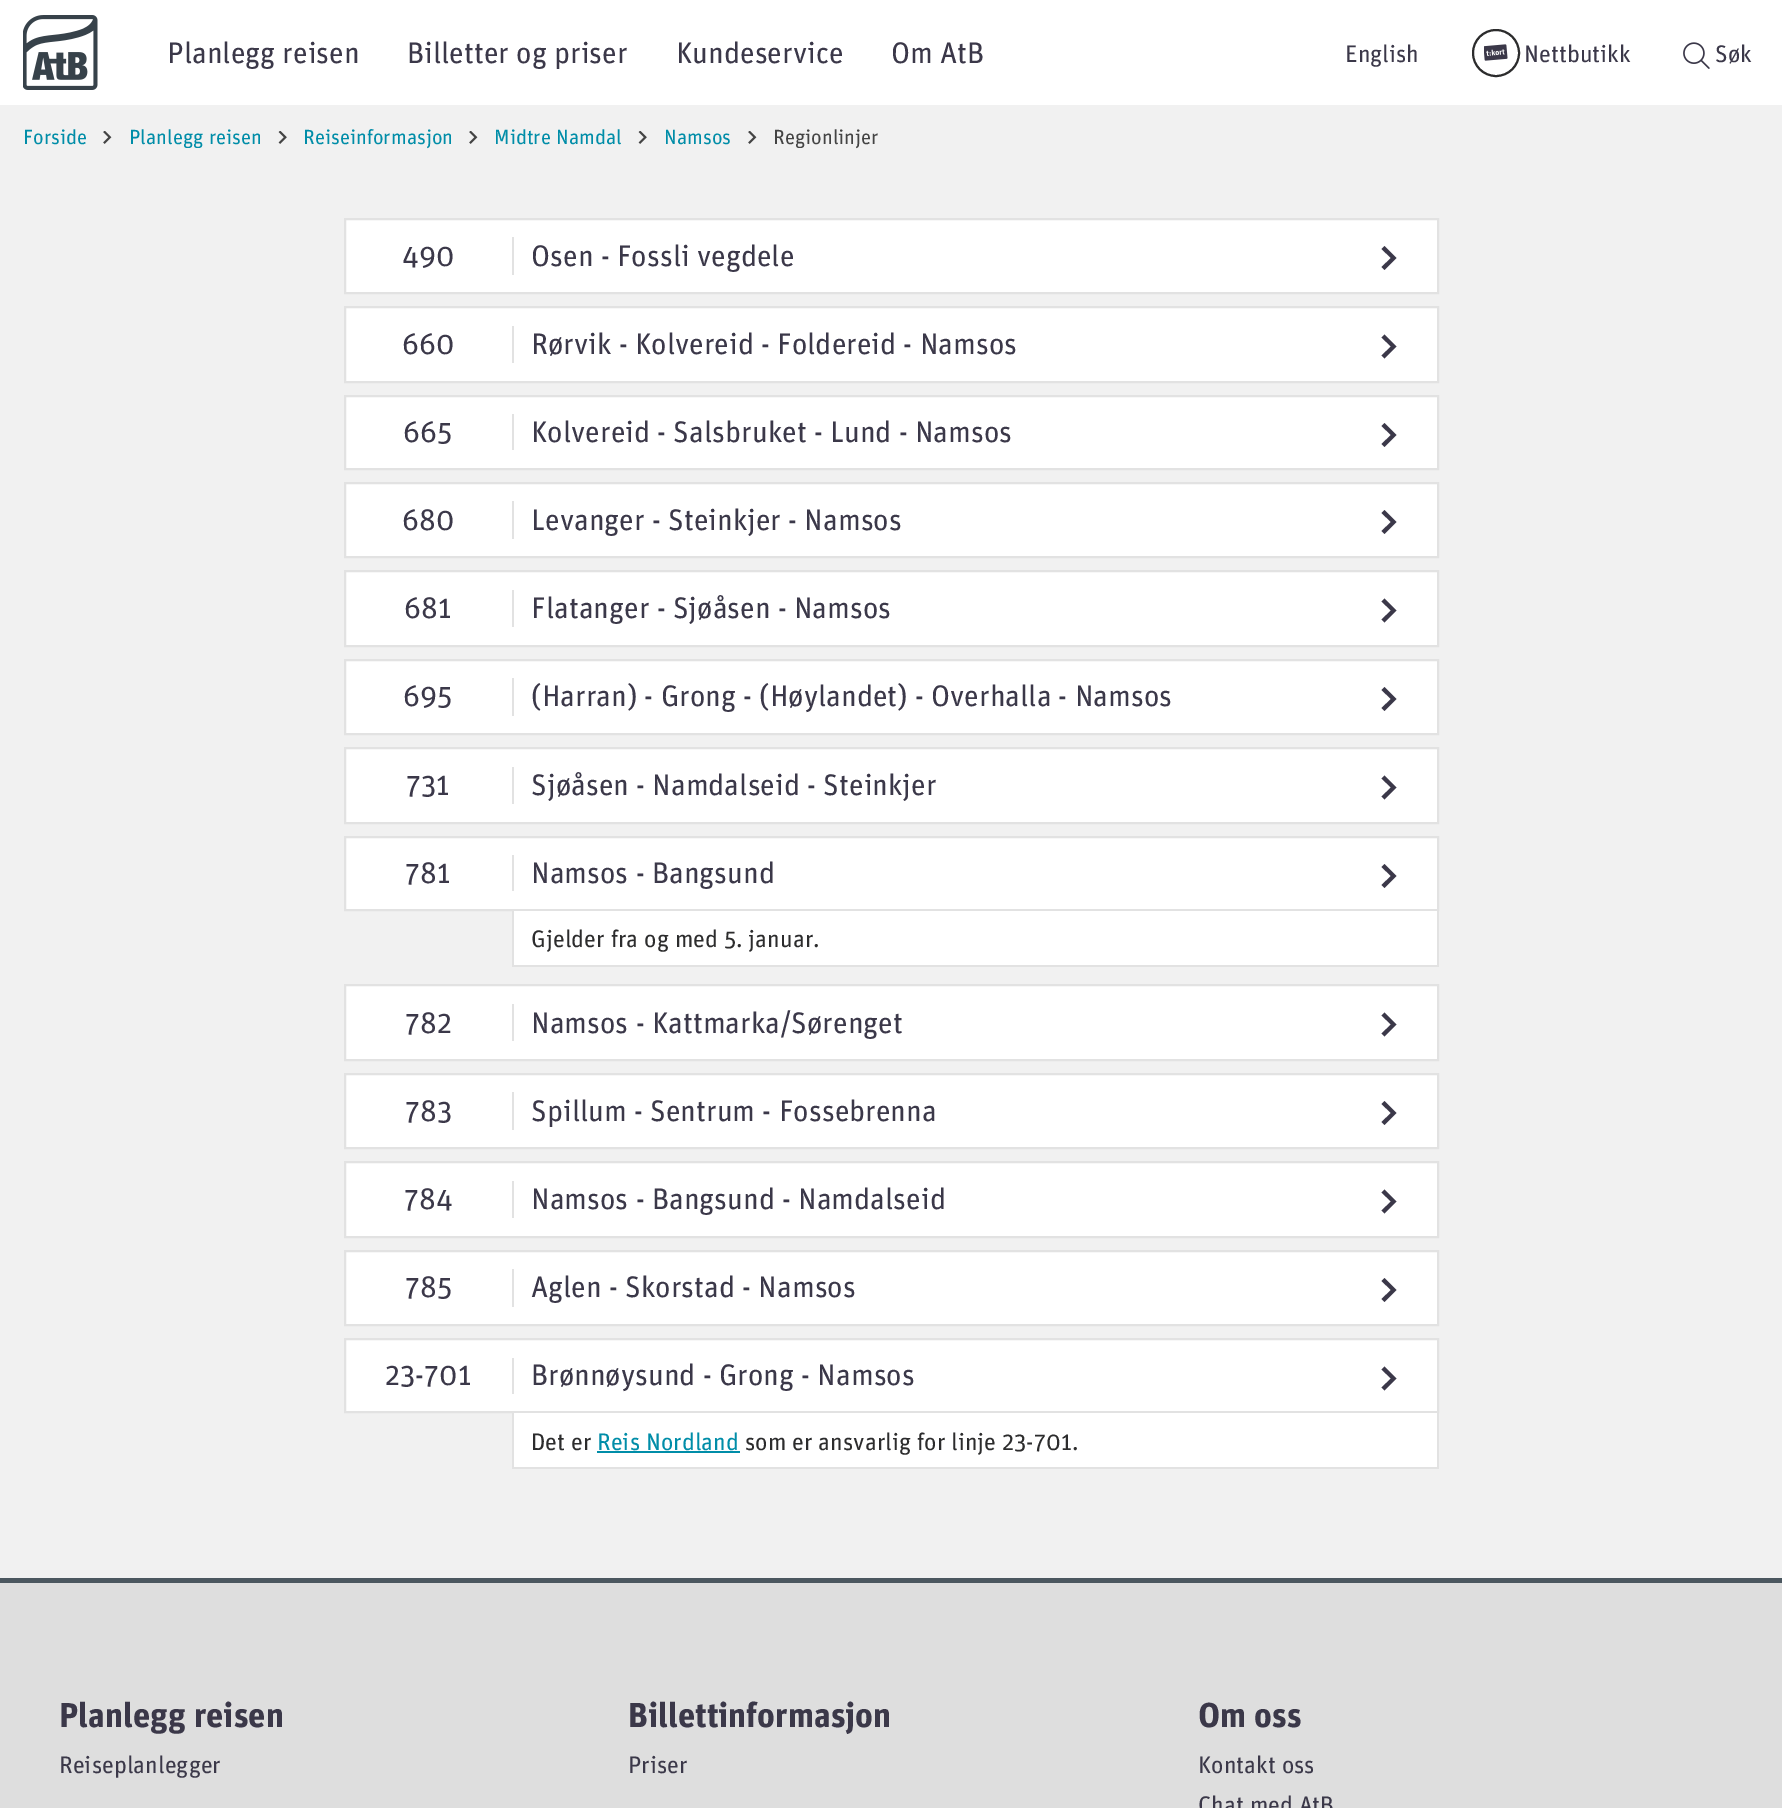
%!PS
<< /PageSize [1782 1808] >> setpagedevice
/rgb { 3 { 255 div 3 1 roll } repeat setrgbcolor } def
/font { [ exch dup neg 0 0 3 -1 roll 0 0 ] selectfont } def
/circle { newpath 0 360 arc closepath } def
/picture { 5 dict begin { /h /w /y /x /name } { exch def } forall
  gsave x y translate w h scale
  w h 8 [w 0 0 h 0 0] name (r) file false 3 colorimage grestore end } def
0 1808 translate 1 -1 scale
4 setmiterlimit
241 241 241 rgb
0 0 1782 1808 rectfill
255 255 255 rgb
0 0 1782 105 rectfill
(img/1.rgb) 23 15 75 75 picture
44 44 45 rgb
2 setlinewidth
1496 53 23 circle stroke
(img/2.rgb) 1484 44 24 17 picture
(img/3.rgb) 1683 42 27 27 picture
(img/4.rgb) 103 131 9 13 picture
(img/5.rgb) 278 131 9 13 picture
(img/4.rgb) 469 131 9 13 picture
(img/5.rgb) 638 131 9 13 picture
(img/4.rgb) 748 131 9 13 picture
255 255 255 rgb
345 219 moveto 1438 219 lineto 1438 293 lineto 345 293 lineto closepath gsave fill grestore
226 226 226 rgb
stroke
512 237 2 38 rectfill
59 56 73 rgb
1384.5 246 moveto 1381.5 249 lineto 1391 258 lineto 1381.5 267 lineto 1384.5 270 lineto 1396.5 258 lineto fill
255 255 255 rgb
345 307 moveto 1438 307 lineto 1438 382 lineto 345 382 lineto closepath gsave fill grestore
226 226 226 rgb
stroke
512 326 2 37 rectfill
59 56 73 rgb
1384.5 334.5 moveto 1381.5 337.5 lineto 1391 346.5 lineto 1381.5 355.5 lineto 1384.5 358.5 lineto 1396.5 346.5 lineto fill
255 255 255 rgb
345 396 moveto 1438 396 lineto 1438 469 lineto 345 469 lineto closepath gsave fill grestore
226 226 226 rgb
stroke
512 414 2 36 rectfill
59 56 73 rgb
1384.5 423 moveto 1381.5 426 lineto 1391 435 lineto 1381.5 444 lineto 1384.5 447 lineto 1396.5 435 lineto fill
255 255 255 rgb
345 483 moveto 1438 483 lineto 1438 557 lineto 345 557 lineto closepath gsave fill grestore
226 226 226 rgb
stroke
512 501 2 38 rectfill
59 56 73 rgb
1384.5 510 moveto 1381.5 513 lineto 1391 522 lineto 1381.5 531 lineto 1384.5 534 lineto 1396.5 522 lineto fill
255 255 255 rgb
345 571 moveto 1438 571 lineto 1438 646 lineto 345 646 lineto closepath gsave fill grestore
226 226 226 rgb
stroke
512 590 2 37 rectfill
59 56 73 rgb
1384.5 598.5 moveto 1381.5 601.5 lineto 1391 610.5 lineto 1381.5 619.5 lineto 1384.5 622.5 lineto 1396.5 610.5 lineto fill
255 255 255 rgb
345 660 moveto 1438 660 lineto 1438 734 lineto 345 734 lineto closepath gsave fill grestore
226 226 226 rgb
stroke
512 678 2 38 rectfill
59 56 73 rgb
1384.5 687 moveto 1381.5 690 lineto 1391 699 lineto 1381.5 708 lineto 1384.5 711 lineto 1396.5 699 lineto fill
255 255 255 rgb
345 748 moveto 1438 748 lineto 1438 823 lineto 345 823 lineto closepath gsave fill grestore
226 226 226 rgb
stroke
512 767 2 37 rectfill
59 56 73 rgb
1384.5 775.5 moveto 1381.5 778.5 lineto 1391 787.5 lineto 1381.5 796.5 lineto 1384.5 799.5 lineto 1396.5 787.5 lineto fill
255 255 255 rgb
345 837 moveto 1438 837 lineto 1438 910 lineto 345 910 lineto closepath gsave fill grestore
226 226 226 rgb
stroke
512 855 2 36 rectfill
59 56 73 rgb
1384.5 864 moveto 1381.5 867 lineto 1391 876 lineto 1381.5 885 lineto 1384.5 888 lineto 1396.5 876 lineto fill
[
  [514 911 923 54 255 255 255]
  [1437 911 2 55 226 226 226]
  [512 965 927 2 226 226 226]
  [512 911 2 55 226 226 226]
] { aload pop rgb rectfill } forall
255 255 255 rgb
345 985 moveto 1438 985 lineto 1438 1060 lineto 345 1060 lineto closepath gsave fill grestore
226 226 226 rgb
stroke
512 1004 2 37 rectfill
59 56 73 rgb
1384.5 1012.5 moveto 1381.5 1015.5 lineto 1391 1024.5 lineto 1381.5 1033.5 lineto 1384.5 1036.5 lineto 1396.5 1024.5 lineto fill
255 255 255 rgb
345 1074 moveto 1438 1074 lineto 1438 1148 lineto 345 1148 lineto closepath gsave fill grestore
226 226 226 rgb
stroke
512 1092 2 38 rectfill
59 56 73 rgb
1384.5 1101 moveto 1381.5 1104 lineto 1391 1113 lineto 1381.5 1122 lineto 1384.5 1125 lineto 1396.5 1113 lineto fill
255 255 255 rgb
345 1162 moveto 1438 1162 lineto 1438 1237 lineto 345 1237 lineto closepath gsave fill grestore
226 226 226 rgb
stroke
512 1181 2 37 rectfill
59 56 73 rgb
1384.5 1189.5 moveto 1381.5 1192.5 lineto 1391 1201.5 lineto 1381.5 1210.5 lineto 1384.5 1213.5 lineto 1396.5 1201.5 lineto fill
255 255 255 rgb
345 1251 moveto 1438 1251 lineto 1438 1325 lineto 345 1325 lineto closepath gsave fill grestore
226 226 226 rgb
stroke
512 1269 2 38 rectfill
59 56 73 rgb
1384.5 1278 moveto 1381.5 1281 lineto 1391 1290 lineto 1381.5 1299 lineto 1384.5 1302 lineto 1396.5 1290 lineto fill
255 255 255 rgb
345 1339 moveto 1438 1339 lineto 1438 1412 lineto 345 1412 lineto closepath gsave fill grestore
226 226 226 rgb
stroke
512 1358 2 36 rectfill
59 56 73 rgb
1384.5 1366.5 moveto 1381.5 1369.5 lineto 1391 1378.5 lineto 1381.5 1387.5 lineto 1384.5 1390.5 lineto 1396.5 1378.5 lineto fill
[
  [514 1413 923 54 255 255 255]
  [1437 1413 2 56 226 226 226]
  [512 1467 927 2 226 226 226]
  [512 1413 2 56 226 226 226]
  [597 1451 143 2 0 141 168]
  [0 1583 1782 225 222 222 222]
  [0 1578 1782 5 75 87 95]
] { aload pop rgb rectfill } forall
/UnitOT-Regular 29.75 font
59 56 73 rgb
[
  [(Planlegg reisen) 167 63]
  [(Billetter og priser) 407 63]
  [(Kundeservice) 676 63]
  [(Om AtB) 891 63]
] { aload pop moveto show } forall
/UnitOT-Regular 24 font
[
  [(English) 1345 62]
  [(Nettbutikk) 1524 62]
  [(Søk) 1715 62]
] { aload pop moveto show } forall
/UnitOT-Regular 20.5 font
0 141 168 rgb
[
  [(Forside) 23 144]
  [(Planlegg reisen) 129 144]
  [(Reiseinformasjon) 303 144]
  [(Midtre Namdal) 494 144]
  [(Namsos) 664 144]
] { aload pop moveto show } forall
68 68 68 rgb
773 144 moveto (Regionlinjer) show
/UnitOT-Regular 29.75 font
59 56 73 rgb
[
  [(490) 402 266]
  [(Osen - Fossli vegdele) 531 266]
  [(660) 402 354]
  [(Rørvik - Kolvereid - Foldereid - Namsos) 531 354]
  [(665) 403 442]
  [(Kolvereid - Salsbruket - Lund - Namsos) 531 442]
  [(680) 402 530]
  [(Levanger - Steinkjer - Namsos) 531 530]
  [(681) 404 618]
  [(Flatanger - Sjøåsen - Namsos) 531 618]
  [(695) 403 706]
  [(\(Harran\) - Grong - \(Høylandet\) - Overhalla - Namsos) 531 706]
  [(731) 406 795]
  [(Sjøåsen - Namdalseid - Steinkjer) 531 795]
  [(781) 405 883]
  [(Namsos - Bangsund) 531 883]
] { aload pop moveto show } forall
/UnitOT-Regular 24 font
44 44 45 rgb
531 947 moveto (Gjelder fra og med 5. januar.) show
/UnitOT-Regular 29.75 font
59 56 73 rgb
[
  [(782) 405 1033]
  [(Namsos - Kattmarka/Sørenget) 531 1033]
  [(783) 405 1121]
  [(Spillum - Sentrum - Fossebrenna) 531 1121]
  [(784) 404 1209]
  [(Namsos - Bangsund - Namdalseid) 531 1209]
  [(785) 405 1297]
  [(Aglen - Skorstad - Namsos) 531 1297]
  [(23-701) 385 1385]
  [(Brønnøysund - Grong - Namsos) 531 1385]
] { aload pop moveto show } forall
/UnitOT-Regular 24 font
44 44 45 rgb
531 1450 moveto (Det er) show
0 141 168 rgb
597 1450 moveto (Reis Nordland) show
44 44 45 rgb
745 1450 moveto (som er ansvarlig for linje 23-701.) show
/UnitOT-Bold 34.5 font
59 56 73 rgb
59 1727 moveto (Planlegg reisen) show
/UnitOT-Regular 24 font
59 1773 moveto (Reiseplanlegger) show
/UnitOT-Bold 34.5 font
628 1727 moveto (Billettinformasjon) show
/UnitOT-Regular 24 font
628 1773 moveto (Priser) show
/UnitOT-Bold 34.5 font
1198 1727 moveto (Om oss) show
/UnitOT-Regular 24 font
1198 1773 moveto (Kontakt oss) show
1198 1813 moveto (Chat med AtB) show
showpage
